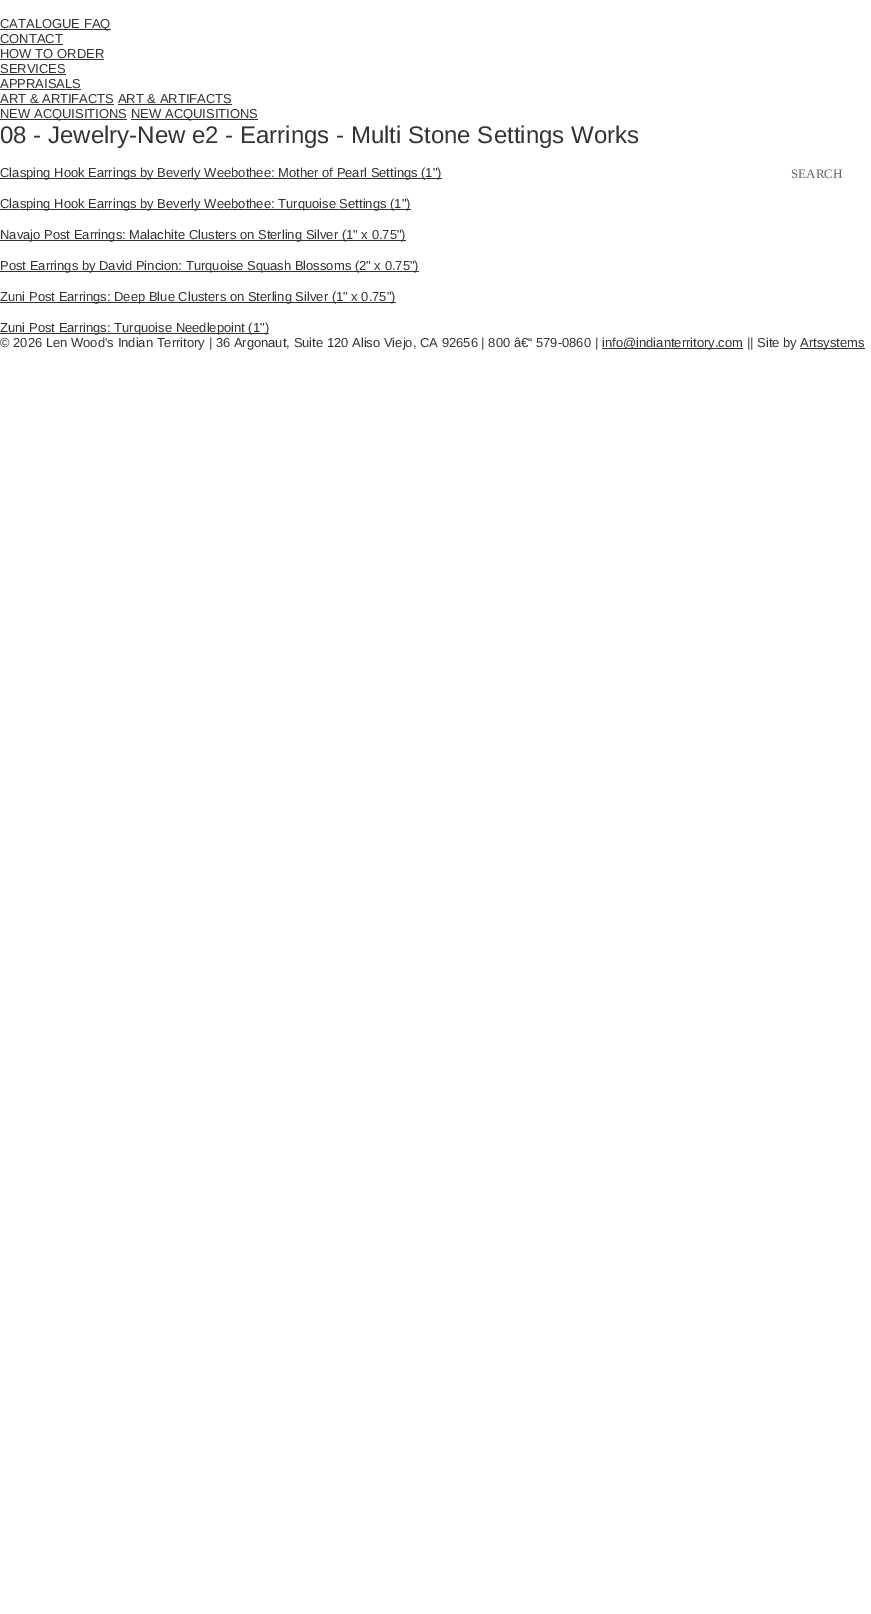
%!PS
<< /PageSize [871 1614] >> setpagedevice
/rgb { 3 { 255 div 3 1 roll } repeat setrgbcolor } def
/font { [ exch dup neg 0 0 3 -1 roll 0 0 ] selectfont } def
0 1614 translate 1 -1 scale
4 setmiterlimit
255 255 255 rgb
0 0 871 1614 rectfill
[
  [0 29 111 1 51 51 51]
  [0 44 63 1 51 51 51]
  [0 59 104 1 51 51 51]
  [0 74 66 1 51 51 51]
  [0 89 81 1 51 51 51]
  [0 104 114 1 51 51 51]
  [118 104 114 1 51 51 51]
  [0 119 127 1 51 51 51]
  [131 119 127 1 51 51 51]
  [0 178 442 1 51 51 51]
  [0 209 411 1 51 51 51]
  [0 240 406 1 51 51 51]
  [0 271 419 1 51 51 51]
  [0 302 396 1 51 51 51]
  [0 333 269 1 51 51 51]
  [602 348 141 1 51 51 51]
  [800 348 65 1 51 51 51]
] { aload pop rgb rectfill } forall
/LiberationSans-Regular 13 font
[
  [(CATALOGUE FAQ) 0 28]
  [(CONTACT) 0 43]
  [(HOW TO ORDER) 0 58]
  [(SERVICES) 0 73]
  [(APPRAISALS) 0 88]
  [(ART & ARTIFACTS ART & ARTIFACTS) 0 103]
  [(NEW ACQUISITIONS) 0 118]
  [(NEW ACQUISITIONS) 131 118]
] { aload pop moveto show } forall
/LiberationSerif-Regular 13 font
102 102 102 rgb
791 178 moveto (SEARCH) show
/LiberationSans-Regular 24 font
51 51 51 rgb
0 143 moveto (08 - Jewelry-New e2 - Earrings - Multi Stone Settings Works) show
/LiberationSans-Regular 13 font
[
  [(Clasping Hook Earrings by Beverly Weebothee: Mother of Pearl Settings \(1"\)) 0 177]
  [(Clasping Hook Earrings by Beverly Weebothee: Turquoise Settings \(1"\)) 0 208]
  [(Navajo Post Earrings: Malachite Clusters on Sterling Silver \(1" x 0.75"\)) 0 239]
  [(Post Earrings by David Pincion: Turquoise Squash Blossoms \(2" x 0.75"\)) 0 270]
  [(Zuni Post Earrings: Deep Blue Clusters on Sterling Silver \(1" x 0.75"\)) 0 301]
  [(Zuni Post Earrings: Turquoise Needlepoint \(1"\)) 0 332]
  [(© 2026 Len Wood's Indian Territory | 36 Argonaut, Suite 120 Aliso Viejo, CA 92656 | 800 â€“ 579-0860 |) 0 347]
  [(info@indianterritory.com || Site by) 602 347]
  [(Artsystems) 800 347]
] { aload pop moveto show } forall
showpage
